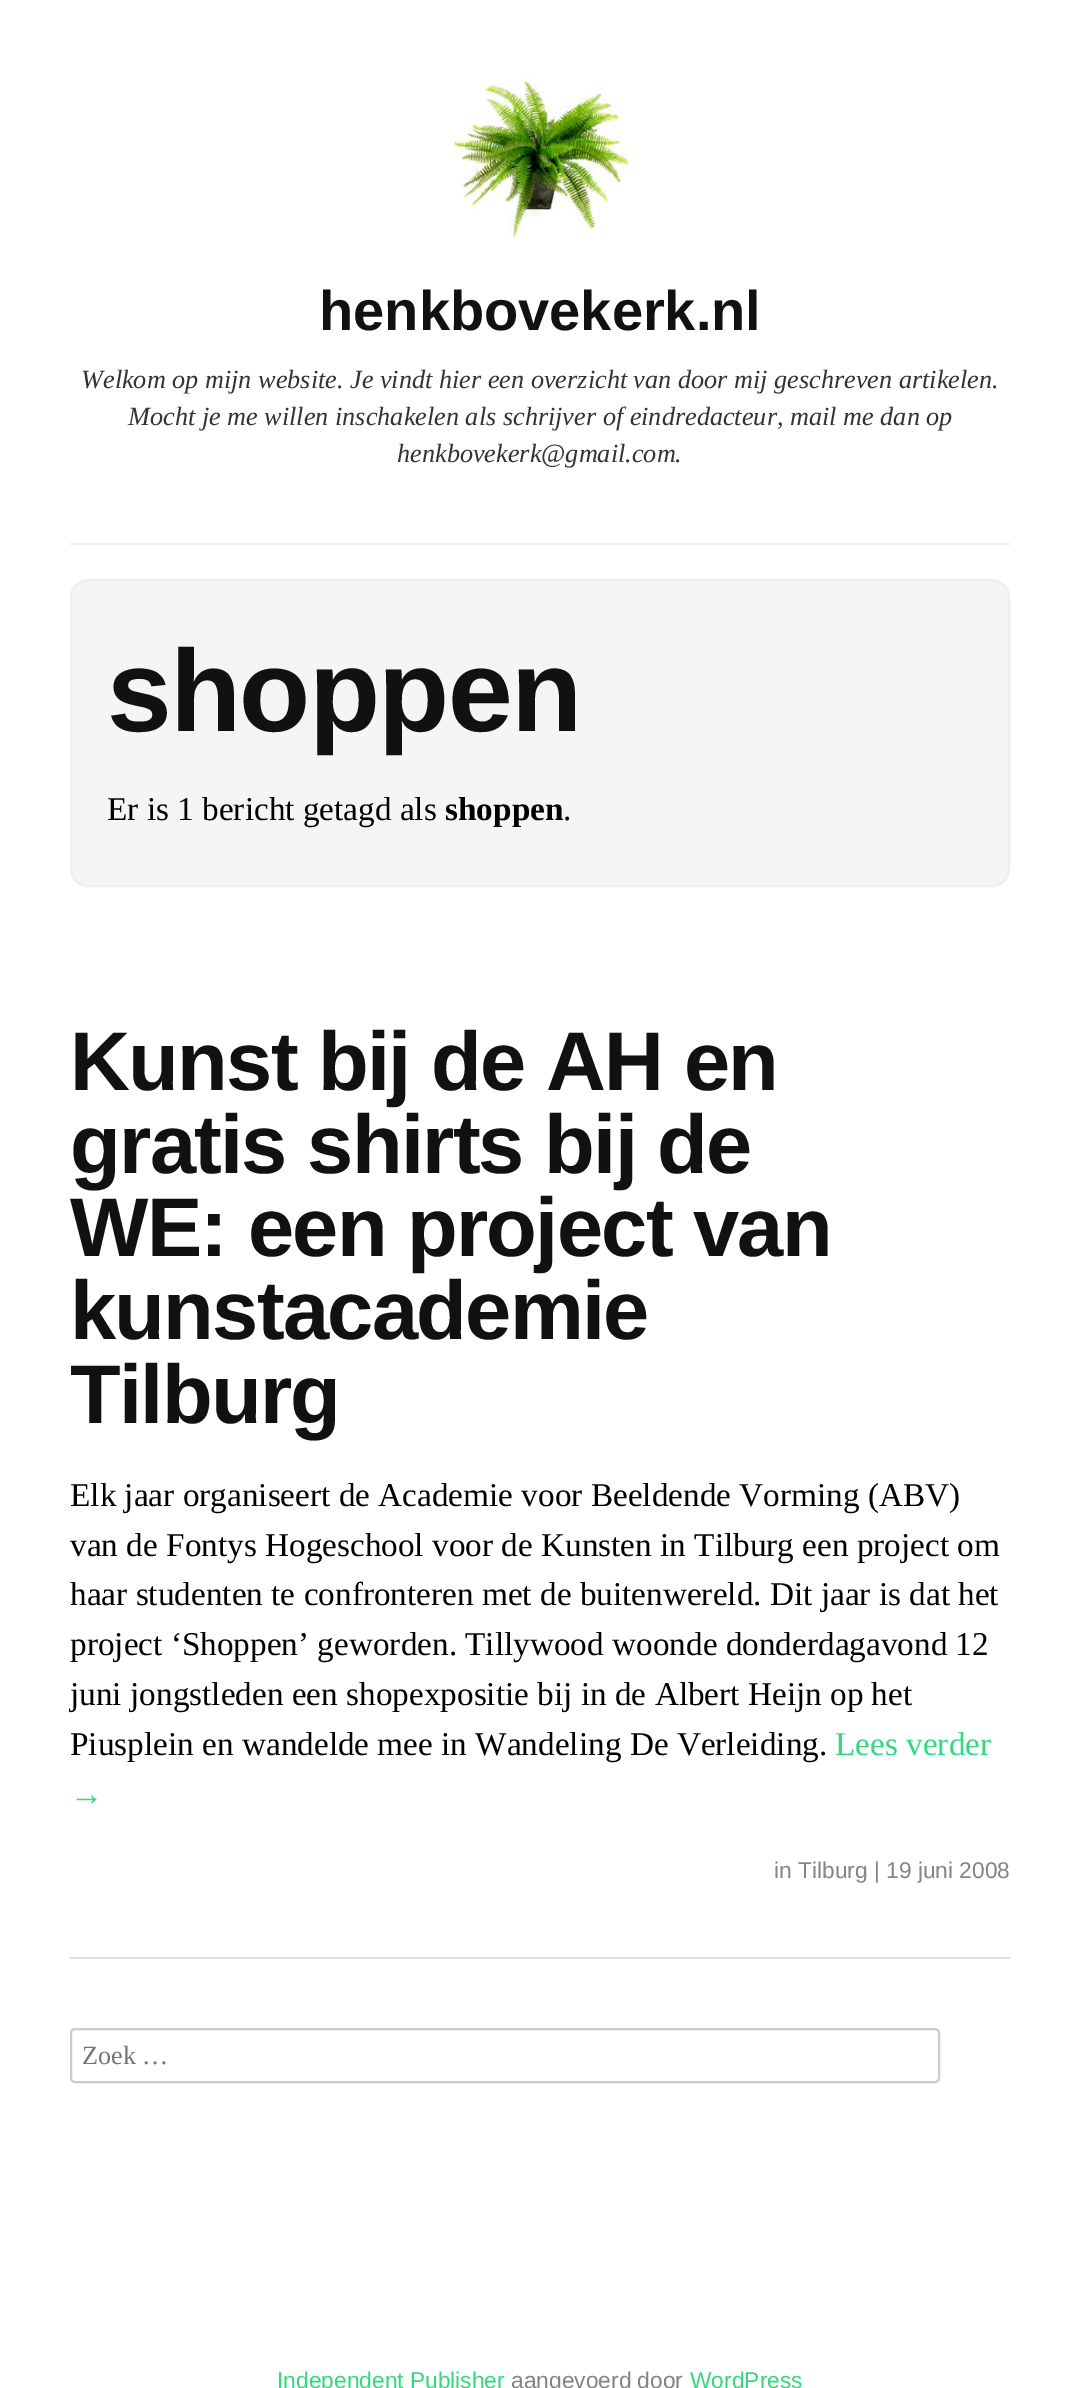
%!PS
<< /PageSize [1079 2388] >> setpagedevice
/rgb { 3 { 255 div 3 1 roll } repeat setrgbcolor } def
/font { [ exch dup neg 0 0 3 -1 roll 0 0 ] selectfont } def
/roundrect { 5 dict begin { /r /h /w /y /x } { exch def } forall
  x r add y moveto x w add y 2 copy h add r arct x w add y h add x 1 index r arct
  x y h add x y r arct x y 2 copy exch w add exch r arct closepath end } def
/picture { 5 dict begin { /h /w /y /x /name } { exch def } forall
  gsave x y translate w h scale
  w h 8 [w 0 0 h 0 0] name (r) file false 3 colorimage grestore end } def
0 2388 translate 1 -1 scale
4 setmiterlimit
255 255 255 rgb
0 0 1079 2388 rectfill
(img/1.rgb) 454 77 174 161 picture
238 238 238 rgb
70 543 940 2 rectfill
245 245 245 rgb
71 580 938 306 17 roundrect gsave fill grestore
238 238 238 rgb
2 setlinewidth
stroke
221 221 221 rgb
70 1957 940 2 rectfill
204 204 204 rgb
71 2029 868 53 4 roundrect stroke
/LiberationSans-Bold 56 font
17 17 17 rgb
319 330 moveto (henkbovekerk.nl) show
/LiberationSerif-Italic 26.25 font
51 51 51 rgb
[
  [(Welkom op mijn website. Je vindt hier een overzicht van door mij geschreven artikelen.) 81 388]
  [(Mocht je me willen inschakelen als schrijver of eindredacteur, mail me dan op) 128 425]
  [(henkbovekerk@gmail.com.) 397 462]
] { aload pop moveto show } forall
/LiberationSans-Bold 116.5 font
17 17 17 rgb
107 731 moveto -1.75 0 (shoppen) ashow
/LiberationSerif-Regular 33.25 font
0 0 0 rgb
107 820 moveto (Er is 1 bericht getagd als) show
/LiberationSerif-Bold 33.25 font
445 820 moveto (shoppen) show
/LiberationSerif-Regular 33.25 font
563 820 moveto (.) show
/LiberationSans-Bold 83.1 font
17 17 17 rgb
70 1090 moveto -1.75 0 (Kunst bij de AH en) ashow
70 1173 moveto -1.75 0 (gratis shirts bij de) ashow
70 1256 moveto -1.75 0 (WE: een project van) ashow
70 1339 moveto -1.75 0 (kunstacademie) ashow
70 1423 moveto -1.75 0 (Tilburg) ashow
/LiberationSerif-Regular 33.25 font
0 0 0 rgb
[
  [(Elk jaar organiseert de Academie voor Beeldende Vorming \(ABV\)) 70 1506]
  [(van de Fontys Hogeschool voor de Kunsten in Tilburg een project om) 70 1556]
  [(haar studenten te confronteren met de buitenwereld. Dit jaar is dat het) 70 1605]
  [(project ‘Shoppen’ geworden. Tillywood woonde donderdagavond 12) 70 1655]
  [(juni jongstleden een shopexpositie bij in de Albert Heijn op het) 70 1705]
  [(Piusplein en wandelde mee in Wandeling De Verleiding.) 70 1755]
] { aload pop moveto show } forall
52 216 128 rgb
835 1755 moveto (Lees verder) show
70 1805 moveto (→) show
/LiberationSans-Regular 22.75 font
132 132 131 rgb
774 1878 moveto (in Tilburg | 19 juni 2008) show
/LiberationSerif-Regular 26.25 font
117 117 117 rgb
82 2064 moveto (Zoek …) show
/LiberationSans-Regular 22.75 font
52 216 128 rgb
277 2388 moveto (Independent Publisher) show
132 132 131 rgb
511 2388 moveto (aangevoerd door) show
52 216 128 rgb
690 2388 moveto (WordPress) show
showpage
